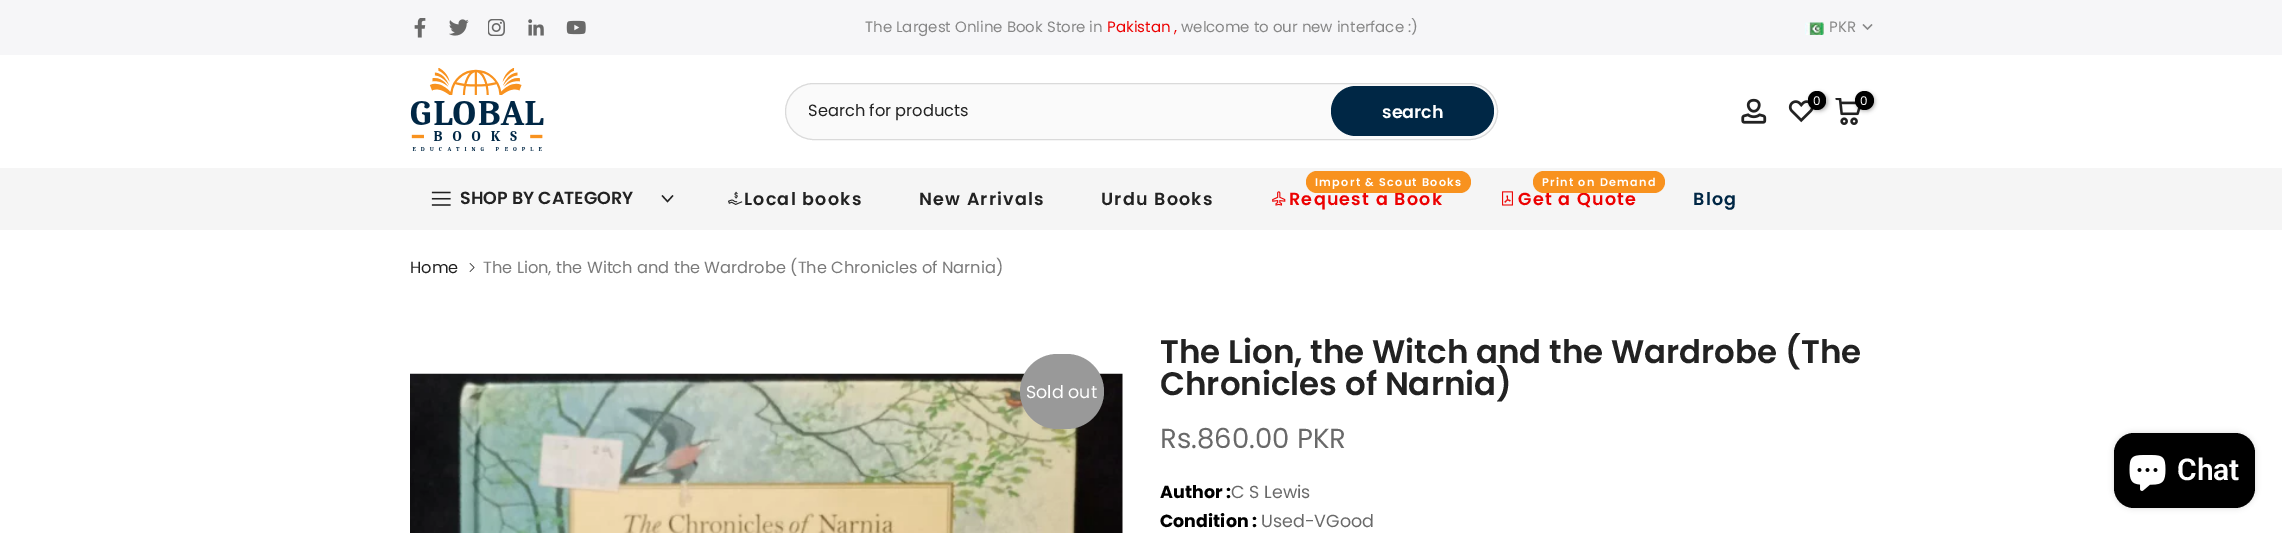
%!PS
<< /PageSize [2282 533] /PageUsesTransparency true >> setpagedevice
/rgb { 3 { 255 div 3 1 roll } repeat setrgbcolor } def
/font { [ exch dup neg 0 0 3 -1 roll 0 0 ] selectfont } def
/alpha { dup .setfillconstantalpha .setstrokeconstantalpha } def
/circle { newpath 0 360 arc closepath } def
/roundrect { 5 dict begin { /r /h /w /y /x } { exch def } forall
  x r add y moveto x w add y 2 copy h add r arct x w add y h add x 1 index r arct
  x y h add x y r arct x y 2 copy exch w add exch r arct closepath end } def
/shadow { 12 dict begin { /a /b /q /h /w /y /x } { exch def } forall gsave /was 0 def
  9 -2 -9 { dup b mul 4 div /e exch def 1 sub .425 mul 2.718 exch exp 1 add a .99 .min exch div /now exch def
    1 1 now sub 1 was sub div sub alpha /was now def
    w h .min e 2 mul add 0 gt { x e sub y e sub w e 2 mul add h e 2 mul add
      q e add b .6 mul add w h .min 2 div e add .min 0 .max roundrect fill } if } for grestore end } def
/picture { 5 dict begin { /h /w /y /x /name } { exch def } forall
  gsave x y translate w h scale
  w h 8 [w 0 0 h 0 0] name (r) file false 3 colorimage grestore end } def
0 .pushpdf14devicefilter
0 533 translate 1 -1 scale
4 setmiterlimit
255 255 255 rgb
0 0 2282 533 rectfill
246 246 248 rgb
0 0 2282 55 rectfill
(img/1.rgb) 414 18 12 20 picture
(img/2.rgb) 449 19 20 17 picture
(img/3.rgb) 488 19 17 17 picture
(img/4.rgb) 528 19 16 17 picture
(img/5.rgb) 566 20 20 15 picture
(img/6.rgb) 1805 22 19 13 picture
135 135 135 rgb
1.1 setlinewidth
2 setlinecap
1871.5 25 moveto 1867.5 29 lineto 1863.5 25 lineto stroke
(img/7.rgb) 410 68 134 83 picture
(img/8.rgb) 1741 98 26 26 picture
(img/9.rgb) 1788 100 26 23 picture
0 0 0 rgb
1809 93 19 18 9 2 0.3 shadow
1808 91 18 19 9 roundrect fill
(img/10.rgb) 1835 98 26 27 picture
1856 93 19 18 9 2 0.3 shadow
1864.5 100.5 9.5 circle fill
250 250 250 rgb
785.5 83.5 712 56 28 roundrect gsave fill grestore
218 218 218 rgb
1 setlinewidth
0 setlinecap
stroke
0 39 69 rgb
1331 86 163 50 25 roundrect fill
245 245 245 rgb
0 168 2282 62 rectfill
(img/11.rgb) 431 191 20 15 picture
34 34 34 rgb
1.3 setlinewidth
2 setlinecap
672.5 196 moveto 667.5 201.5 lineto 662.5 196 lineto stroke
(img/12.rgb) 728 191 15 14 picture
(img/13.rgb) 1272 191 14 15 picture
(img/14.rgb) 1502 191 11 15 picture
(img/15.rgb) 469 263 6 9 picture
(img/16.rgb) 410 373 713 160 picture
153 153 153 rgb
1020 354 84 75 37.5 roundrect fill
0 0 0 rgb
2114 433 141 75 20 3 0.15 shadow
2114 433 141 75 20 roundrect fill
(img/17.rgb) 2129 455 37 36 picture
/Poppins-Regular 15 font
135 135 135 rgb
865 32 moveto (The Largest Online Book Store in) show
236 1 1 rgb
1107 32 moveto (Pakistan ,) show
135 135 135 rgb
1181 32 moveto (welcome to our new interface :\)) show
1829 32 moveto (PKR) show
/Poppins-Regular 12 font
255 255 255 rgb
1813 105 moveto (0) show
1860 105 moveto (0) show
/Poppins-Regular 16.25 font
34 34 34 rgb
808 116 moveto (Search for products) show
/Poppins-SemiBold 17.5 font
255 255 255 rgb
1382 118 moveto (search) show
34 34 34 rgb
460 204 moveto (SHOP BY CATEGORY) show
744 205 moveto 1.25 0 (Local books) ashow
919 205 moveto 1.25 0 (New Arrivals) ashow
1101 205 moveto 1.25 0 (Urdu Books) ashow
236 1 1 rgb
1289 205 moveto 1.25 0 (Request a Book) ashow
248 146 31 rgb
1306 171 165 22 11 roundrect fill
/Poppins-SemiBold 11.25 font
255 255 255 rgb
1315 186 moveto 1.25 0 (Import & Scout Books) ashow
/Poppins-SemiBold 17.5 font
236 1 1 rgb
1518 205 moveto 1.25 0 (Get a Quote) ashow
248 146 31 rgb
1533 171 132 22 11 roundrect fill
/Poppins-SemiBold 11.25 font
255 255 255 rgb
1542 186 moveto 1.25 0 (Print on Demand) ashow
/Poppins-SemiBold 17.5 font
0 39 69 rgb
1693 205 moveto 1.25 0 (Blog) ashow
/Poppins-Regular 16.25 font
34 34 34 rgb
410 273 moveto (Home) show
122 122 122 rgb
483 273 moveto (The Lion, the Witch and the Wardrobe \(The Chronicles of Narnia\)) show
/Poppins-Regular 17.5 font
255 255 255 rgb
1026 398 moveto (Sold out) show
/Poppins-SemiBold 32.5 font
34 34 34 rgb
1160 363 moveto (The Lion, the Witch and the Wardrobe \(The) show
1160 395 moveto (Chronicles of Narnia\)) show
/Poppins-Regular 27.5 font
105 105 105 rgb
1160 448 moveto (Rs.860.00 PKR) show
/Poppins-Bold 17.5 font
0 0 0 rgb
1160 498 moveto (Author :) show
/Poppins-Regular 17.5 font
105 105 105 rgb
1231 498 moveto (C S Lewis) show
/Poppins-Bold 17.5 font
0 0 0 rgb
1160 527 moveto (Condition :) show
/Poppins-Regular 17.5 font
105 105 105 rgb
1261 527 moveto (Used-VGood) show
/Roboto-SemiBold 30 font
255 255 255 rgb
2177 480 moveto (Chat) show
.poppdf14devicefilter showpage
